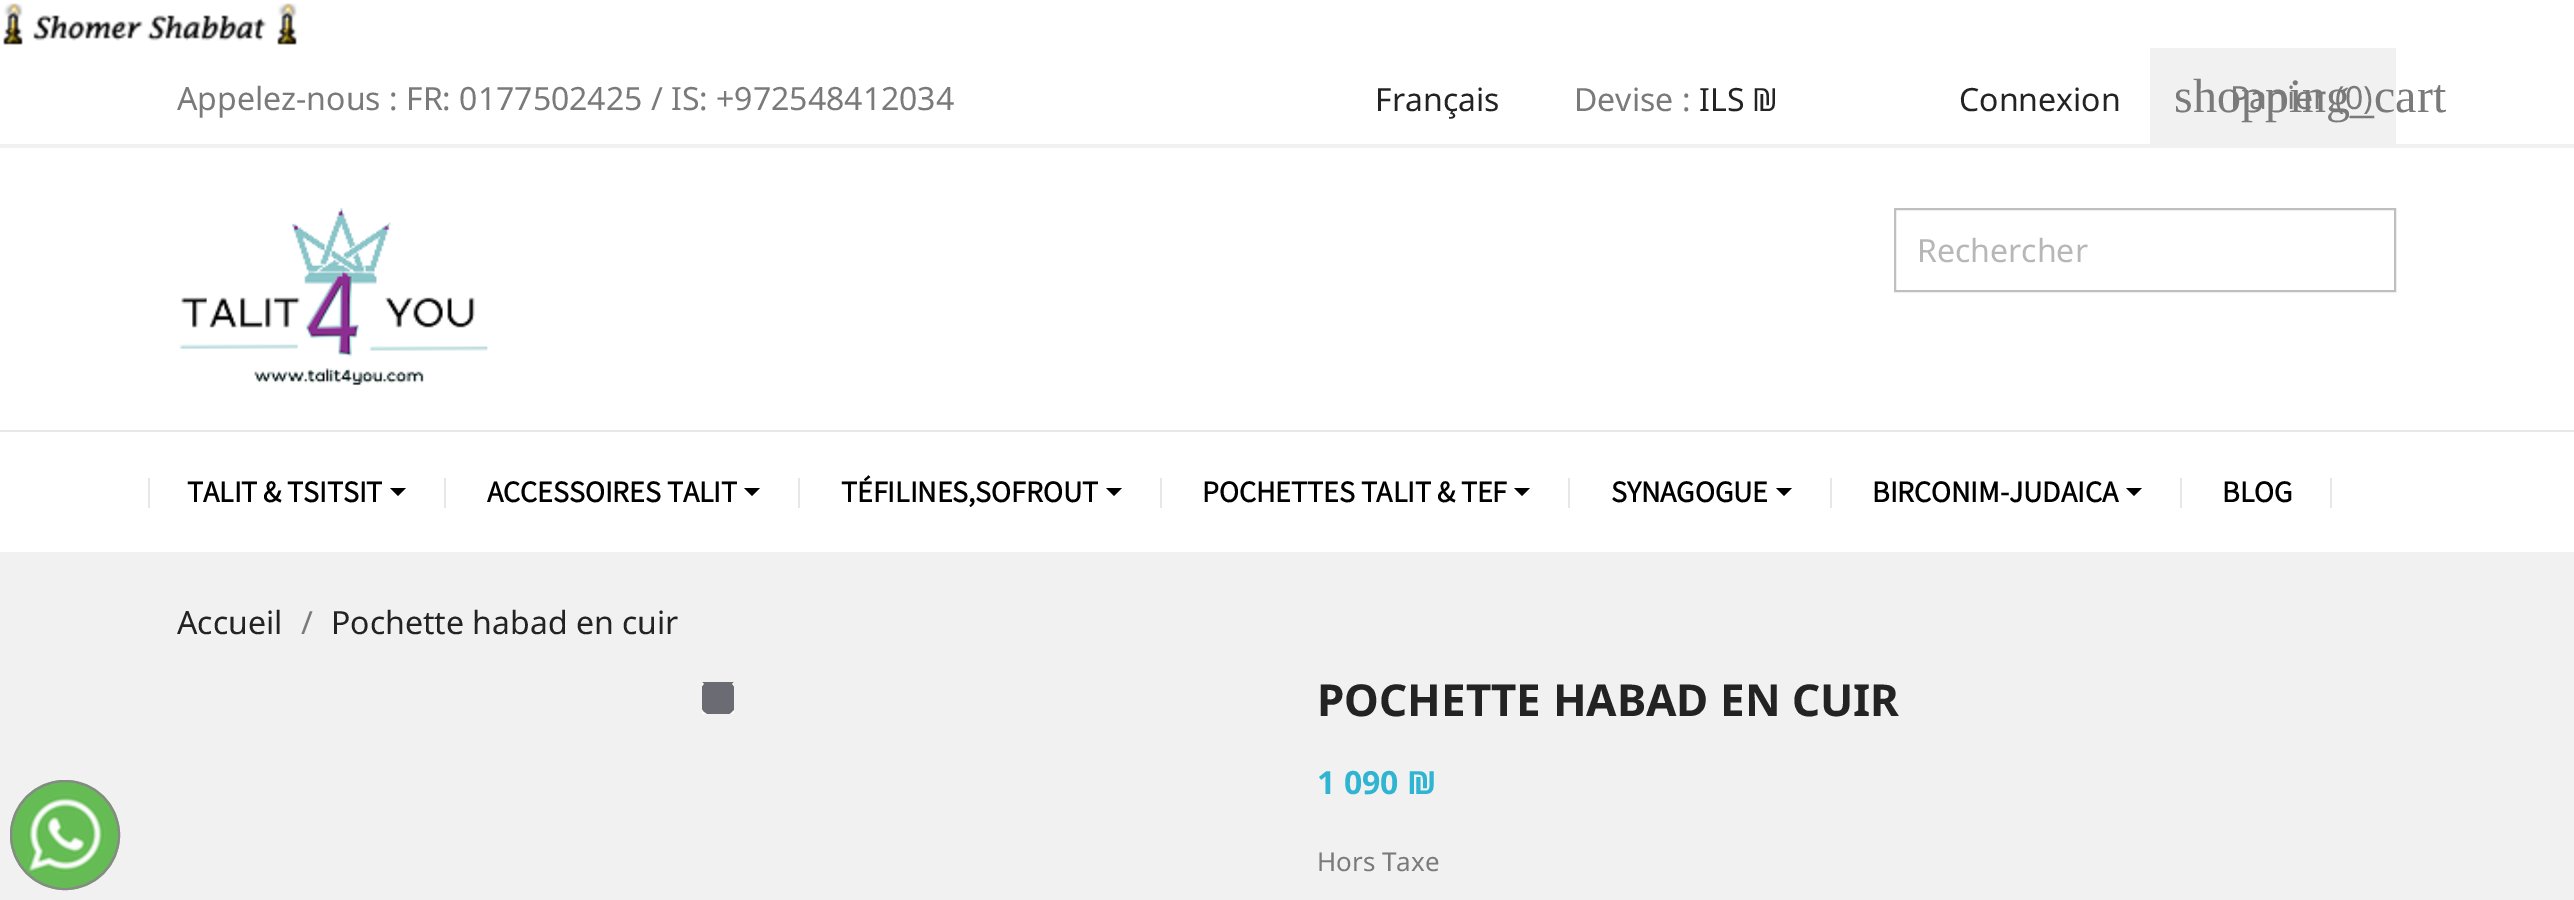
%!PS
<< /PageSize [2574 900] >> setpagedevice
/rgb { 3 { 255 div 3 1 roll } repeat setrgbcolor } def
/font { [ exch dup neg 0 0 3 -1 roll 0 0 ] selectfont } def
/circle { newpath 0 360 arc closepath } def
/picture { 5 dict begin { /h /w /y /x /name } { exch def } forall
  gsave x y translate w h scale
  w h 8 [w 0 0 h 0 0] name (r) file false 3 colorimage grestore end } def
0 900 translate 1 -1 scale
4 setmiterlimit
255 255 255 rgb
0 0 2574 900 rectfill
(img/1.rgb) 3 3 294 42 picture
241 241 241 rgb
0 144 2574 4 rectfill
2150 48 246 96 rectfill
(img/2.rgb) 179 208 309 179 picture
191 191 191 rgb
2 setlinewidth
1895 209 500 82 rectstroke
231 231 231 rgb
0 430 2574 2 rectfill
148 478 2 30 rectfill
0 0 0 rgb
390 488 moveto 406 488 lineto 398 496 lineto closepath fill
231 231 231 rgb
444 478 2 30 rectfill
0 0 0 rgb
744 488 moveto 760 488 lineto 752 496 lineto closepath fill
231 231 231 rgb
798 478 2 30 rectfill
0 0 0 rgb
1106 488 moveto 1122 488 lineto 1114 496 lineto closepath fill
231 231 231 rgb
1160 478 2 30 rectfill
0 0 0 rgb
1514 488 moveto 1530 488 lineto 1522 496 lineto closepath fill
231 231 231 rgb
1568 478 2 30 rectfill
0 0 0 rgb
1776 488 moveto 1792 488 lineto 1784 496 lineto closepath fill
231 231 231 rgb
1830 478 2 30 rectfill
0 0 0 rgb
2126 488 moveto 2142 488 lineto 2134 496 lineto closepath fill
[
  [2180 478 2 30 231 231 231]
  [2330 478 2 30 231 231 231]
  [0 552 2574 348 241 241 241]
] { aload pop rgb rectfill } forall
101 188 84 rgb
65 835 55 circle fill
(img/3.rgb) 20 790 90 90 picture
136 136 136 rgb
65 835 54 circle stroke
gsave
702 682 32 32 rectclip
107 108 115 rgb
718 698 36 circle fill
255 255 255 rgb
4 setlinewidth
733.5 682.5 moveto 738.5 687.5 741 695 739.5 702.5 curveto 734.5 728 696 724 696 698 curveto 696 692 698.5 686.5 702.5 682.5 curveto stroke
grestore
/NotoSans-Regular 32 font
122 122 122 rgb
177 110 moveto (Appelez-nous : FR: 0177502425 / IS: +972548412034) show
35 35 35 rgb
1375 111 moveto (Français) show
122 122 122 rgb
1574 111 moveto (Devise :) show
35 35 35 rgb
1699 111 moveto (ILS ₪) show
1959 111 moveto (Connexion) show
/LiberationSerif-Regular 48 font
122 122 122 rgb
2174 112 moveto (shopping_cart) show
/NotoSans-Regular 32 font
2230 109 moveto (Panier \(0\)) show
183 183 183 rgb
1917 262 moveto (Rechercher) show
/Assistant-Bold 30 font
0 0 0 rgb
[
  [(TALIT & TSITSIT) 187 502]
  [(ACCESSOIRES TALIT) 487 502]
  [(TÉFILINES,SOFROUT) 841 502]
  [(POCHETTES TALIT & TEF) 1202 502]
  [(SYNAGOGUE) 1611 502]
  [(BIRCONIM-JUDAICA) 1872 502]
  [(BLOG) 2222 502]
] { aload pop moveto show } forall
/NotoSans-Regular 32 font
35 35 35 rgb
177 634 moveto (Accueil) show
122 122 122 rgb
301 634 moveto (/) show
35 35 35 rgb
331 634 moveto (Pochette habad en cuir) show
/NotoSans-Bold 44 font
1317 716 moveto (POCHETTE HABAD EN CUIR) show
/NotoSans-Bold 32 font
47 181 210 rgb
1317 794 moveto (1 090 ₪) show
/NotoSans-Regular 26 font
122 122 122 rgb
1317 871 moveto (Hors Taxe) show
showpage
